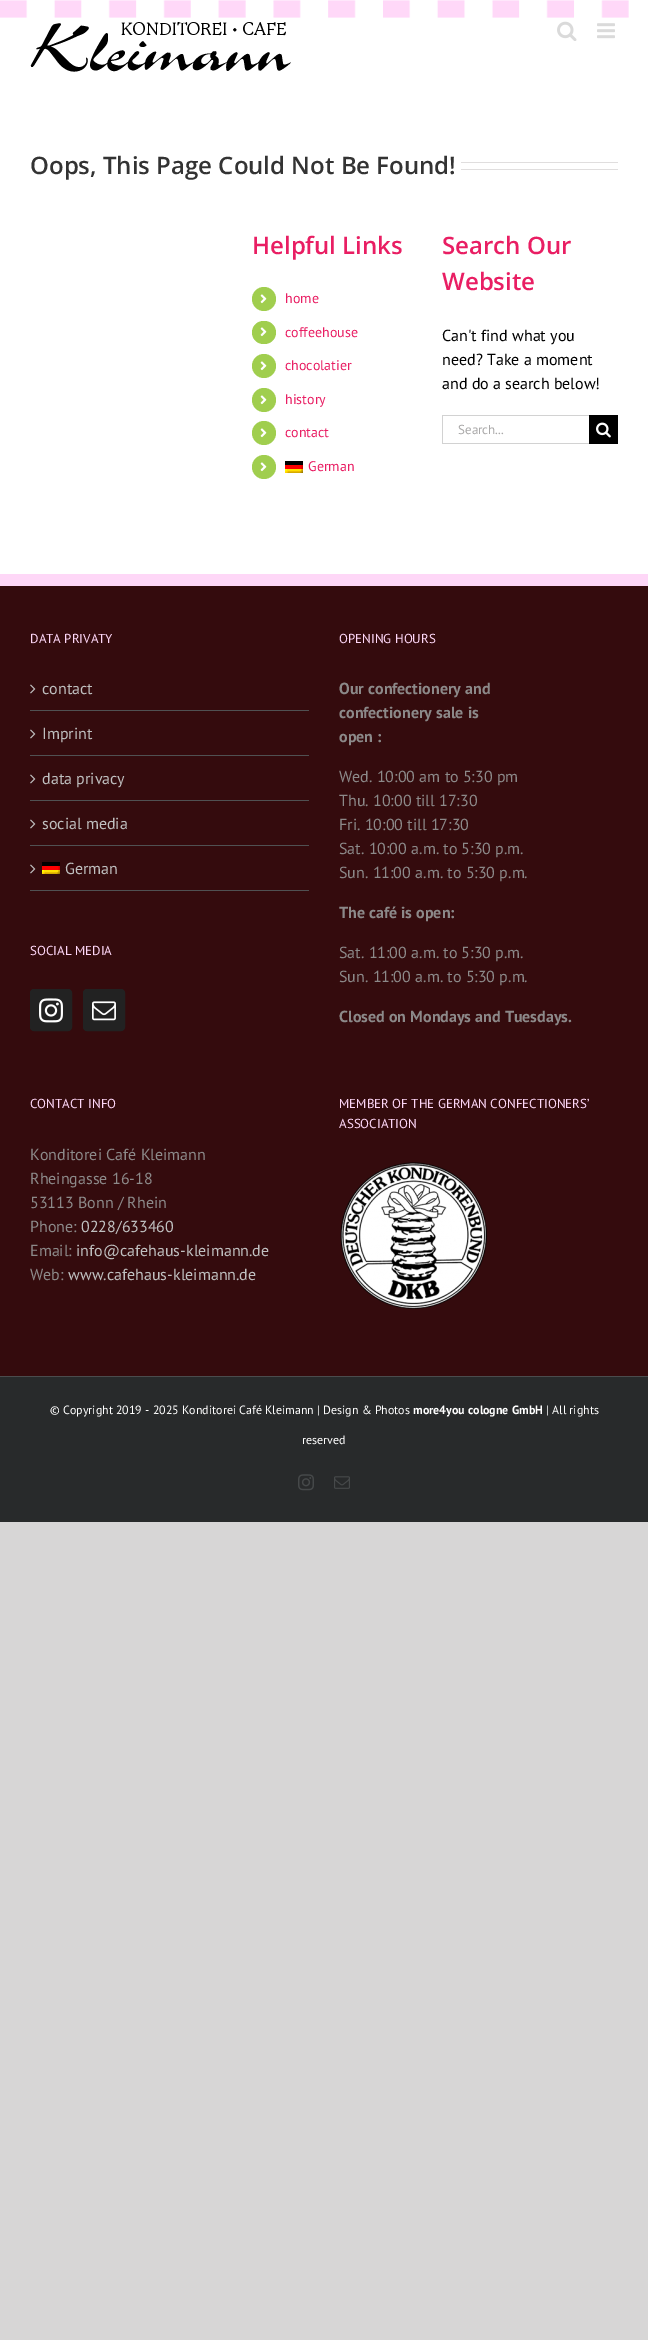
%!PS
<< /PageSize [648 2340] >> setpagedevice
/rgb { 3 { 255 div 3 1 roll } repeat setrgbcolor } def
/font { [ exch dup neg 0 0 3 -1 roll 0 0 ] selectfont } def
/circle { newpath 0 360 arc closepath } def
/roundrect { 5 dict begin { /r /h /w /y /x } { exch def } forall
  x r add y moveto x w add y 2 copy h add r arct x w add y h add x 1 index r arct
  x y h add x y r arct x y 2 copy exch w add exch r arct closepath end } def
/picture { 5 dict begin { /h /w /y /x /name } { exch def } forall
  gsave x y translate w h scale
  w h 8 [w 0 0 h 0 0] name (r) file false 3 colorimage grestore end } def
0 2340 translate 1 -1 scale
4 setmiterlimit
215 214 214 rgb
0 0 648 2340 rectfill
255 255 255 rgb
0 0 648 574 rectfill
(img/1.rgb) 0 0 629 18 picture
(img/2.rgb) 30 22 261 50 picture
(img/3.rgb) 557 21 20 20 picture
(img/4.rgb) 597 23 18 16 picture
224 222 222 rgb
461 162 157 1 rectfill
461 169 157 1 rectfill
160 206 78 rgb
264 299 12 circle fill
(img/5.rgb) 260 294 7 10 picture
252 321 24 23 11.5 roundrect fill
(img/5.rgb) 260 327 7 10 picture
264 366 12 circle fill
(img/5.rgb) 260 361 7 10 picture
264 400 12 circle fill
(img/5.rgb) 260 395 7 10 picture
264 433 12 circle fill
(img/5.rgb) 260 428 7 10 picture
264 467 12 circle fill
(img/5.rgb) 260 462 7 10 picture
(img/6.rgb) 285 461 18 12 picture
[
  [442 415 147 1 210 210 210]
  [442 443 147 1 210 210 210]
  [442 415 1 29 210 210 210]
  [589 415 29 29 0 0 0]
] { aload pop rgb rectfill } forall
(img/7.rgb) 596 422 15 16 picture
[
  [0 586 648 790 52 11 13]
  [0 574 648 12 254 215 247]
  [30 710 279 1 80 81 82]
] { aload pop rgb rectfill } forall
(img/8.rgb) 30 684 6 10 picture
30 755 279 1 rectfill
(img/8.rgb) 30 729 6 10 picture
30 800 279 1 rectfill
(img/8.rgb) 30 774 6 10 picture
30 845 279 1 rectfill
(img/8.rgb) 30 819 6 10 picture
30 890 279 1 rectfill
(img/8.rgb) 30 864 6 10 picture
(img/6.rgb) 42 862 18 12 picture
34 34 34 rgb
30.5 989.5 41 41 3.5 roundrect gsave fill grestore
stroke
(img/9.rgb) 39 998 24 25 picture
83.5 989.5 41 41 3.5 roundrect gsave fill grestore
stroke
(img/10.rgb) 92 1001 24 20 picture
(img/11.rgb) 340 1162 147 147 picture
40 42 43 rgb
0 1377 648 145 rectfill
75 76 77 rgb
0 1376 648 1 rectfill
(img/12.rgb) 298 1474 16 17 picture
(img/13.rgb) 334 1476 16 13 picture
/OpenSans-SemiBold 24 font
51 51 51 rgb
30 174 moveto (Oops, This Page Could Not Be Found!) show
233 30 99 rgb
252 254 moveto (Helpful Links) show
/PTSans-Regular 14 font
[
  [(home) 285 303]
  [(coffeehouse) 285 337]
  [(chocolatier) 285 370]
  [(history) 285 404]
  [(contact) 285 437]
  [(German) 308 471]
] { aload pop moveto show } forall
/OpenSans-SemiBold 24 font
442 254 moveto (Search Our) show
442 290 moveto (Website) show
/PTSans-Regular 16 font
0 0 0 rgb
[
  [(Can't find what you) 442 341]
  [(need? Take a moment) 442 365]
  [(and do a search below!) 442 389]
] { aload pop moveto show } forall
/PTSans-Regular 13 font
170 169 169 rgb
458 434 moveto (Search...) show
254 215 247 rgb
30 643 moveto (DATA PRIVATY) show
/PTSans-Regular 16 font
191 191 191 rgb
[
  [(contact) 42 694]
  [(Imprint) 42 739]
  [(data privacy) 42 784]
  [(social media) 42 829]
  [(German) 65 874]
] { aload pop moveto show } forall
/PTSans-Regular 13 font
254 215 247 rgb
30 955 moveto (SOCIAL MEDIA) show
339 643 moveto (OPENING HOURS) show
/PTSans-Bold 16 font
140 137 137 rgb
[
  [(Our confectionery and) 339 694]
  [(confectionery sale is) 339 718]
  [(open :) 339 742]
] { aload pop moveto show } forall
/PTSans-Regular 16 font
[
  [(Wed. 10:00 am to 5:30 pm) 339 782]
  [(Thu. 10:00 till 17:30) 339 806]
  [(Fri. 10:00 till 17:30) 339 830]
  [(Sat. 10:00 a.m. to 5:30 p.m.) 339 854]
  [(Sun. 11:00 a.m. to 5:30 p.m.) 339 878]
] { aload pop moveto show } forall
/PTSans-Bold 16 font
339 918 moveto (The café is open:) show
/PTSans-Regular 16 font
339 958 moveto (Sat. 11:00 a.m. to 5:30 p.m.) show
339 982 moveto (Sun. 11:00 a.m. to 5:30 p.m.) show
/PTSans-Bold 16 font
339 1022 moveto (Closed on Mondays and Tuesdays.) show
/PTSans-Regular 13 font
254 215 247 rgb
30 1108 moveto (CONTACT INFO) show
/PTSans-Regular 16 font
140 137 137 rgb
[
  [(Konditorei Café Kleimann) 30 1160]
  [(Rheingasse 16-18) 30 1184]
  [(53113 Bonn / Rhein) 30 1208]
  [(Phone:) 30 1232]
] { aload pop moveto show } forall
191 191 191 rgb
81 1232 moveto (0228/633460) show
140 137 137 rgb
30 1256 moveto (Email:) show
191 191 191 rgb
76 1256 moveto (info@cafehaus-kleimann.de) show
140 137 137 rgb
30 1280 moveto (Web:) show
191 191 191 rgb
68 1280 moveto (www.cafehaus-kleimann.de) show
/PTSans-Regular 13 font
254 215 247 rgb
339 1108 moveto (MEMBER OF THE GERMAN CONFECTIONERS’) show
339 1128 moveto (ASSOCIATION) show
/PTSans-Regular 12 font
255 255 255 rgb
50 1414 moveto (© Copyright 2019 - 2025 Konditorei Café Kleimann | Design & Photos) show
/PTSans-Bold 12 font
413 1414 moveto (more4you cologne GmbH) show
/PTSans-Regular 12 font
546 1414 moveto (| All rights) show
302 1444 moveto (reserved) show
showpage
